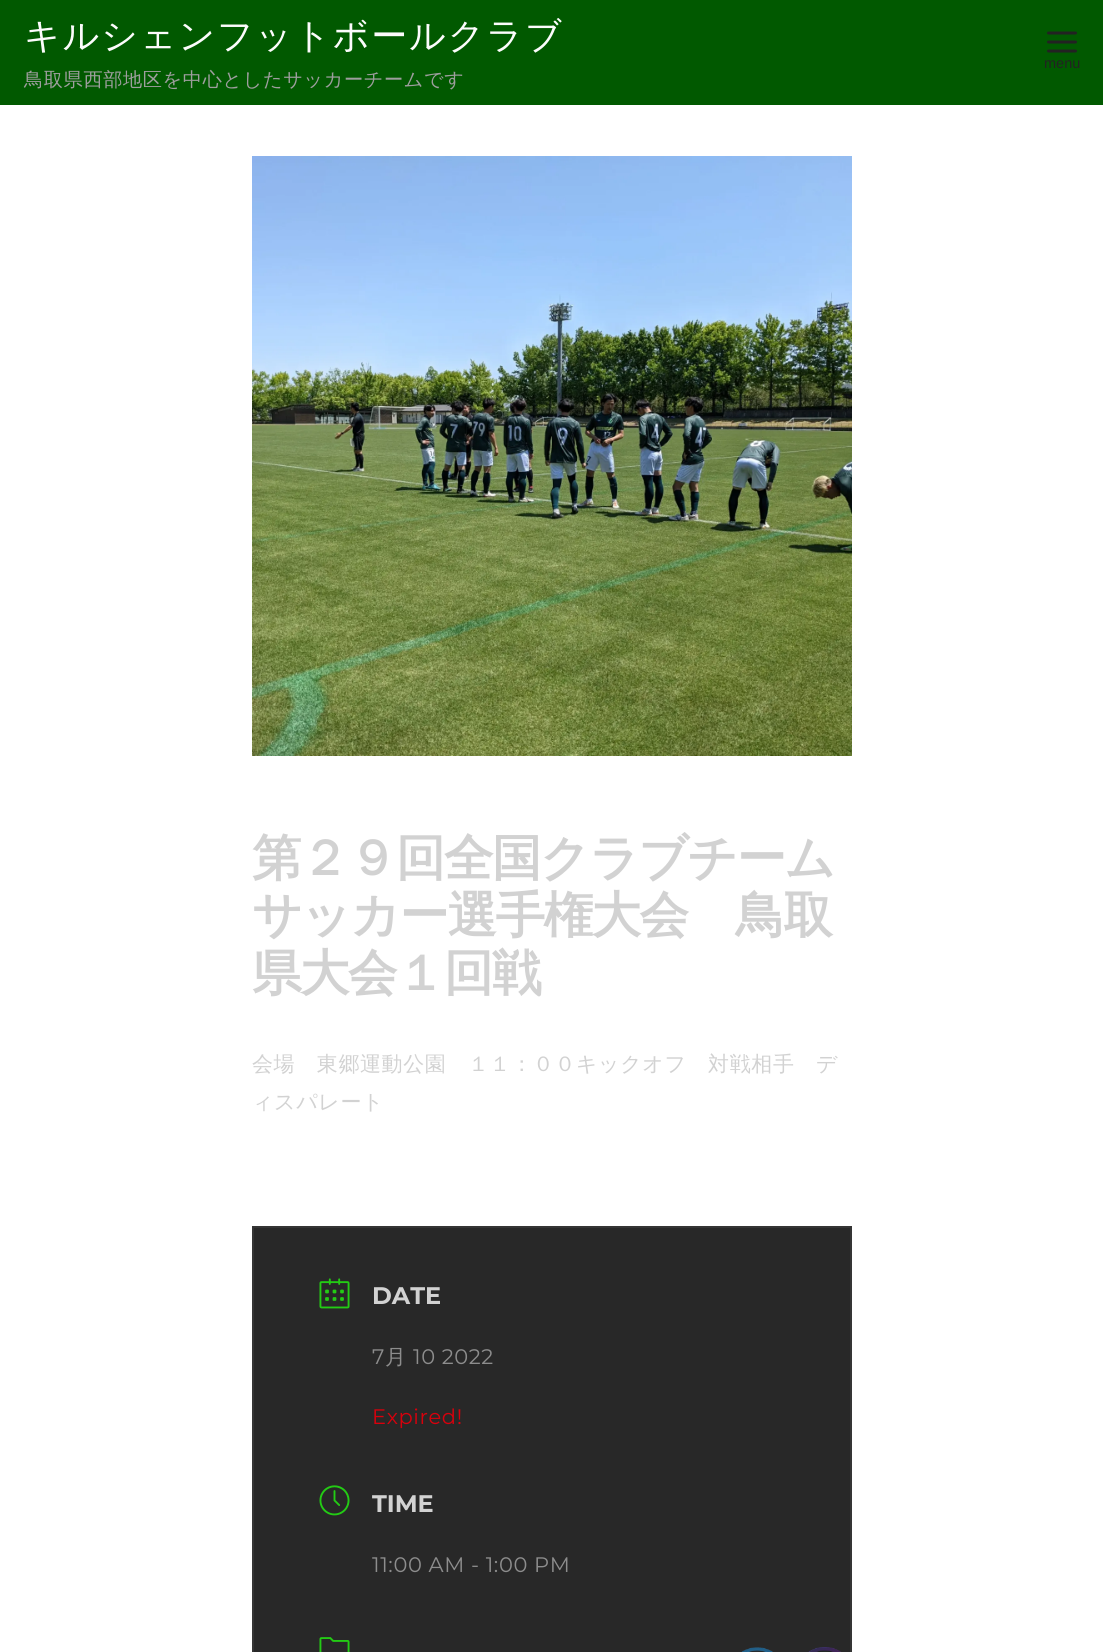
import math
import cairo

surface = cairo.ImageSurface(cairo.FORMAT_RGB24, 1103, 1652)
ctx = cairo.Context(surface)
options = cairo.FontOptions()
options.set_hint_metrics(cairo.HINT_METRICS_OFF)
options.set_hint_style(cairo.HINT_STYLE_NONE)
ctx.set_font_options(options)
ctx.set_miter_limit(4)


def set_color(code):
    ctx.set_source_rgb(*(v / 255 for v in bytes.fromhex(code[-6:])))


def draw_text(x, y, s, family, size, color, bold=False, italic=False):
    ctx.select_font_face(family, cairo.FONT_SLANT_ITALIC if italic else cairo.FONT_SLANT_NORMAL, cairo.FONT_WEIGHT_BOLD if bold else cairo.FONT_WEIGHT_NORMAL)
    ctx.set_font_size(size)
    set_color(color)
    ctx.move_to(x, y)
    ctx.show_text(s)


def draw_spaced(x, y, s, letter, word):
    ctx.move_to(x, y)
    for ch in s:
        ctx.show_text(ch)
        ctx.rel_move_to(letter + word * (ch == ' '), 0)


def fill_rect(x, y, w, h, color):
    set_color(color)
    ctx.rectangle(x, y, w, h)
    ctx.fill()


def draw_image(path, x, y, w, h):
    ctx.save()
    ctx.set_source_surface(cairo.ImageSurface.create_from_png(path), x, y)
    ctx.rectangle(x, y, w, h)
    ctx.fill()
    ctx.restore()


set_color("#ffffff")
ctx.paint()
fill_rect(0, 0, 1103, 105, "#015900")
ctx.select_font_face("WenQuanYi Zen Hei Medium")
ctx.set_font_size(36)
set_color("#fcfcfc")
draw_spaced(24, 48, "キルシェンフットボールクラブ", 1.75, 0)
ctx.set_font_size(19.2)
set_color("#9e9e9e")
draw_spaced(24, 86, "鳥取県西部地区を中心としたサッカーチームです", 0.6, 0)
ctx.new_path()
ctx.move_to(1048.5, 42)
ctx.line_to(1075.5, 42)
ctx.move_to(1048.5, 33)
ctx.line_to(1075.5, 33)
ctx.move_to(1048.5, 51)
ctx.line_to(1075.5, 51)
set_color("#222222")
ctx.set_line_width(3)
ctx.set_line_cap(cairo.LINE_CAP_ROUND)
ctx.set_line_join(cairo.LINE_JOIN_ROUND)
ctx.stroke()
draw_text(1044, 68, "menu", "Liberation Sans", 14.5, "#222222")
draw_image("assets/img1.png", 252, 156, 600, 600)
ctx.select_font_face("WenQuanYi Zen Hei", cairo.FONT_SLANT_NORMAL, cairo.FONT_WEIGHT_BOLD)
ctx.set_font_size(49.5)
set_color("#d2d2d2")
draw_spaced(252, 875, "第２９回全国クラブチーム", -1.5, 0)
draw_spaced(252, 932, "サッカー選手権大会　鳥取", -1.5, 0)
draw_spaced(252, 990, "県大会１回戦", -1.5, 0)
ctx.select_font_face("WenQuanYi Zen Hei Medium")
ctx.set_font_size(21)
draw_spaced(252, 1071, "会場　東郷運動公園　１１：００キックオフ　対戦相手　デ", 0.6, 0)
draw_spaced(252, 1109, "ィスパレート", 0.6, 0)
set_color("#282828")
ctx.rectangle(253, 1227, 598, 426)
ctx.fill_preserve()
set_color("#353535")
ctx.set_line_width(2)
ctx.set_line_cap(cairo.LINE_CAP_BUTT)
ctx.set_line_join(cairo.LINE_JOIN_MITER)
ctx.stroke()
draw_image("assets/img2.png", 319, 1278, 31, 31)
draw_text(372, 1304, "DATE", "Montserrat", 24, "#d2d2d2", bold=True)
ctx.select_font_face("Montserrat")
ctx.set_font_size(21)
set_color("#8d8d8d")
draw_spaced(372, 1364, "7", 0.6, 0)
ctx.select_font_face("WenQuanYi Zen Hei Medium")
draw_spaced(385, 1364, "月", 0.6, 0)
ctx.select_font_face("Montserrat")
draw_spaced(413, 1364, "10 2022", 0.6, 0)
set_color("#d8000c")
draw_spaced(372, 1424, "Expired!", 0.6, 0)
draw_image("assets/img3.png", 319, 1485, 31, 31)
draw_text(372, 1512, "TIME", "Montserrat", 24, "#d2d2d2", bold=True)
ctx.select_font_face("Montserrat")
ctx.set_font_size(21)
set_color("#8d8d8d")
draw_spaced(372, 1572, "11:00 AM - 1:00 PM", 0.6, 0)
draw_image("assets/img4.png", 319, 1637, 31, 15)
draw_image("assets/img5.png", 741, 1647, 32, 5)
draw_image("assets/img6.png", 808, 1647, 33, 5)
surface.write_to_png("output.png")
